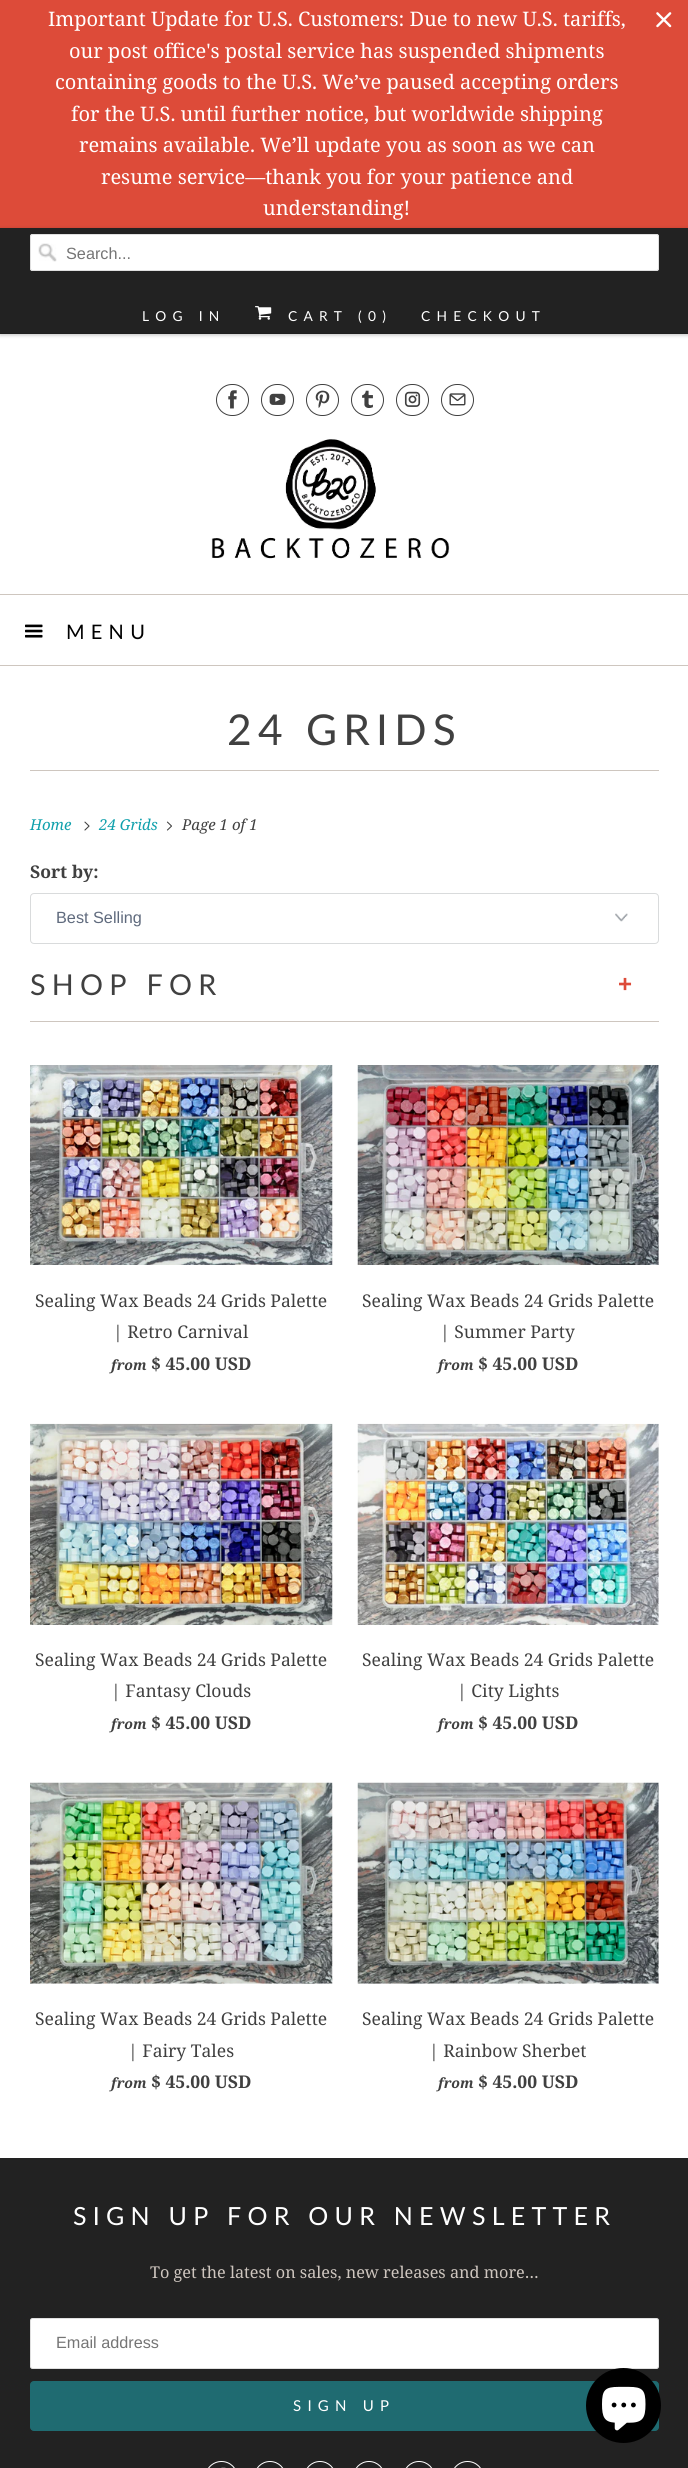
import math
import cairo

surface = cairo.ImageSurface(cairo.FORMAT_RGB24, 688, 2468)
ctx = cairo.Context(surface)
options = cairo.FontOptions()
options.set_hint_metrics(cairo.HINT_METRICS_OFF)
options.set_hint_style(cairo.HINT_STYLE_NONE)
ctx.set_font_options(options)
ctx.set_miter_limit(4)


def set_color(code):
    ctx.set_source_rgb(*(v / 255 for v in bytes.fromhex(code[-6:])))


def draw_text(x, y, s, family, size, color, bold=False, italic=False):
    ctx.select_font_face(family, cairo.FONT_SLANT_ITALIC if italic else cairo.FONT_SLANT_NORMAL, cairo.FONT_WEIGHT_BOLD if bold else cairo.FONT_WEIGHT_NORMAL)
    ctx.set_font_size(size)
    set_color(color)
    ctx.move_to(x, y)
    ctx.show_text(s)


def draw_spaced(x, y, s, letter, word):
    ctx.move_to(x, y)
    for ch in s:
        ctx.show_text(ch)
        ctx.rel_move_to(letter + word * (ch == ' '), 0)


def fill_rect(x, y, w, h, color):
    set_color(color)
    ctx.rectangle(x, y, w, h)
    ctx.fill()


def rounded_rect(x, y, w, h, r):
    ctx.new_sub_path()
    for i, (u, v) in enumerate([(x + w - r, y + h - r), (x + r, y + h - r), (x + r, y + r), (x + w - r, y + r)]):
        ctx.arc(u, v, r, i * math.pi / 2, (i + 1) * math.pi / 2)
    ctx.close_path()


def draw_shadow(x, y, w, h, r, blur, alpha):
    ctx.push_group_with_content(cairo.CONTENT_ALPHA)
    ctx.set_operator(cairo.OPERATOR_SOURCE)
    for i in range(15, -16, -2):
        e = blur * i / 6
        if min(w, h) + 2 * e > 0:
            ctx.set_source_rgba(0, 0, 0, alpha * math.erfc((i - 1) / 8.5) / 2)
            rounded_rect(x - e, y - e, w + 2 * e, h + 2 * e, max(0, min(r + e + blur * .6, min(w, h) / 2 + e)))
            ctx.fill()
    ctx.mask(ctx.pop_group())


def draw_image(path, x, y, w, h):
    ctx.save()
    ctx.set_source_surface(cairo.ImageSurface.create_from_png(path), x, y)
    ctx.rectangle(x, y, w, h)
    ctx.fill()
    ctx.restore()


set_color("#ffffff")
ctx.paint()
fill_rect(0, 0, 688, 228, "#dd4b39")
draw_text(48, 26, "Important Update for U.S. Customers: Due to new U.S. tariffs,", "Noto Serif", 20, "#ffffff")
draw_text(69, 58, "our post office's postal service has suspended shipments", "Noto Serif", 20, "#ffffff")
draw_text(55, 89, "containing goods to the U.S. We’ve paused accepting orders", "Noto Serif", 20, "#ffffff")
draw_text(71, 121, "for the U.S. until further notice, but worldwide shipping", "Noto Serif", 20, "#ffffff")
draw_text(79, 152, "remains available. We’ll update you as soon as we can", "Noto Serif", 20, "#ffffff")
draw_text(101, 184, "resume service—thank you for your patience and", "Noto Serif", 20, "#ffffff")
draw_text(263, 215, "understanding!", "Noto Serif", 20, "#ffffff")
draw_image("assets/img1.png", 656, 12, 16, 16)
set_color("#000000")
draw_shadow(0, 229, 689, 106, 0, 2, 0.25)
fill_rect(0, 228, 688, 105, "#222222")
fill_rect(0, 333, 688, 1, "#1f1f1f")
set_color("#ffffff")
rounded_rect(30, 234, 629, 37, 2.5)
ctx.fill()
draw_image("assets/img2.png", 38, 243, 19, 19)
rounded_rect(30.5, 234.5, 628, 36, 2)
set_color("#dfdfdf")
ctx.set_line_width(1)
ctx.stroke()
draw_text(66, 259, "Search...", "Liberation Sans", 16.25, "#757575")
ctx.select_font_face("Lato")
ctx.set_font_size(13.75)
set_color("#ffffff")
draw_spaced(142, 321, "LOG IN", 6.25, 0)
draw_image("assets/img3.png", 255, 306, 17, 14)
draw_spaced(288, 321, "CART (0)", 6.25, 0)
draw_spaced(421, 321, "CHECKOUT", 6.25, 0)
rounded_rect(216.5, 384.5, 32, 31, 15.5)
set_color("#404040")
ctx.stroke()
draw_image("assets/img4.png", 228, 390, 9, 19)
rounded_rect(261.5, 384.5, 32, 31, 15.5)
ctx.stroke()
draw_image("assets/img5.png", 269, 393, 17, 12)
rounded_rect(306.5, 384.5, 32, 31, 15.5)
ctx.stroke()
draw_image("assets/img6.png", 315, 390, 15, 18)
rounded_rect(351.5, 384.5, 32, 31, 15.5)
ctx.stroke()
draw_image("assets/img7.png", 362, 390, 11, 18)
rounded_rect(396.5, 384.5, 32, 31, 15.5)
ctx.stroke()
draw_image("assets/img8.png", 404, 391, 17, 16)
rounded_rect(441.5, 384.5, 32, 31, 15.5)
ctx.stroke()
draw_image("assets/img9.png", 449, 393, 17, 13)
draw_image("assets/img10.png", 211, 439, 239, 120)
fill_rect(0, 594, 688, 1, "#cec6bf")
fill_rect(0, 665, 688, 1, "#cec6bf")
draw_image("assets/img11.png", 25, 624, 18, 14)
ctx.set_font_size(20)
set_color("#000000")
draw_spaced(66, 639, "MENU", 6.25, 0)
fill_rect(30, 770, 629, 1, "#cec6bf")
ctx.set_font_size(42.5)
set_color("#404040")
draw_spaced(227, 745, "24 GRIDS", 6.25, 0)
draw_text(30, 830, "Home", "Noto Serif", 15, "#0fa0ac", italic=True)
draw_image("assets/img12.png", 84, 821, 6, 10)
draw_text(99, 830, "24 Grids", "Noto Serif", 15, "#0fa0ac", italic=True)
draw_image("assets/img13.png", 166, 821, 6, 10)
draw_text(182, 830, "Page 1 of 1", "Noto Serif", 15, "#404040", italic=True)
draw_text(30, 878, "Sort by:", "Noto Serif", 17.5, "#404040", bold=True)
draw_image("assets/img14.png", 615, 913, 13, 9)
rounded_rect(30.5, 893.5, 628, 50, 3.5)
set_color("#d9dbdc")
ctx.stroke()
draw_text(56, 923, "Best Selling", "Liberation Sans", 16.25, "#5f6a7d")
fill_rect(30, 1021, 629, 1, "#cec6bf")
ctx.select_font_face("Lato")
ctx.set_font_size(28.75)
set_color("#404040")
draw_spaced(30, 995, "SHOP FOR", 6.25, 0)
ctx.select_font_face("Liberation Sans", cairo.FONT_SLANT_NORMAL, cairo.FONT_WEIGHT_BOLD)
ctx.set_font_size(24)
set_color("#dd4b39")
draw_spaced(618, 992, "+", 6.25, 0)
draw_image("assets/img15.png", 30, 1065, 303, 200)
draw_text(35, 1307, "Sealing Wax Beads 24 Grids Palette", "Noto Serif", 17.5, "#404040")
draw_text(113, 1338, "| Retro Carnival", "Noto Serif", 17.5, "#404040")
draw_text(111, 1370, "from", "Noto Serif", 14, "#404040", bold=True, italic=True)
draw_text(151, 1370, "$ 45.00 USD", "Noto Serif", 17.5, "#404040", bold=True)
draw_image("assets/img16.png", 357, 1065, 302, 200)
draw_text(362, 1307, "Sealing Wax Beads 24 Grids Palette", "Noto Serif", 17.5, "#404040")
draw_text(440, 1338, "| Summer Party", "Noto Serif", 17.5, "#404040")
draw_text(438, 1370, "from", "Noto Serif", 14, "#404040", bold=True, italic=True)
draw_text(478, 1370, "$ 45.00 USD", "Noto Serif", 17.5, "#404040", bold=True)
draw_image("assets/img17.png", 30, 1423, 303, 202)
draw_text(35, 1666, "Sealing Wax Beads 24 Grids Palette", "Noto Serif", 17.5, "#404040")
draw_text(111, 1697, "| Fantasy Clouds", "Noto Serif", 17.5, "#404040")
draw_text(111, 1729, "from", "Noto Serif", 14, "#404040", bold=True, italic=True)
draw_text(151, 1729, "$ 45.00 USD", "Noto Serif", 17.5, "#404040", bold=True)
draw_image("assets/img18.png", 357, 1423, 302, 202)
draw_text(362, 1666, "Sealing Wax Beads 24 Grids Palette", "Noto Serif", 17.5, "#404040")
draw_text(457, 1697, "| City Lights", "Noto Serif", 17.5, "#404040")
draw_text(438, 1729, "from", "Noto Serif", 14, "#404040", bold=True, italic=True)
draw_text(478, 1729, "$ 45.00 USD", "Noto Serif", 17.5, "#404040", bold=True)
draw_image("assets/img19.png", 30, 1782, 303, 202)
draw_text(35, 2025, "Sealing Wax Beads 24 Grids Palette", "Noto Serif", 17.5, "#404040")
draw_text(128, 2057, "| Fairy Tales", "Noto Serif", 17.5, "#404040")
draw_text(111, 2088, "from", "Noto Serif", 14, "#404040", bold=True, italic=True)
draw_text(151, 2088, "$ 45.00 USD", "Noto Serif", 17.5, "#404040", bold=True)
draw_image("assets/img20.png", 357, 1782, 302, 202)
draw_text(362, 2025, "Sealing Wax Beads 24 Grids Palette", "Noto Serif", 17.5, "#404040")
draw_text(429, 2057, "| Rainbow Sherbet", "Noto Serif", 17.5, "#404040")
draw_text(438, 2088, "from", "Noto Serif", 14, "#404040", bold=True, italic=True)
draw_text(478, 2088, "$ 45.00 USD", "Noto Serif", 17.5, "#404040", bold=True)
fill_rect(0, 2158, 688, 310, "#222222")
ctx.select_font_face("Lato")
ctx.set_font_size(25)
set_color("#ffffff")
draw_spaced(73, 2225, "SIGN UP FOR OUR NEWSLETTER", 6.25, 0)
draw_text(150, 2278, "To get the latest on sales, new releases and more…", "Noto Serif", 16.25, "#cec6bf")
set_color("#ffffff")
rounded_rect(30.5, 2318.5, 628, 50, 2)
ctx.fill_preserve()
set_color("#dfdfdf")
ctx.stroke()
draw_text(56, 2348, "Email address", "Liberation Sans", 16.25, "#757575")
set_color("#1f6b71")
rounded_rect(30.5, 2381.5, 628, 49, 3.5)
ctx.fill_preserve()
ctx.stroke()
ctx.select_font_face("Lato")
ctx.set_font_size(15)
set_color("#ffffff")
draw_spaced(293, 2411, "SIGN UP", 6.25, 0)
rounded_rect(205.5, 2461.5, 32, 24, 16)
ctx.stroke()
draw_image("assets/img21.png", 221, 2467, 5, 1)
rounded_rect(254.5, 2461.5, 31, 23, 15.5)
ctx.stroke()
rounded_rect(304.5, 2461.5, 31, 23, 15.5)
ctx.stroke()
rounded_rect(353.5, 2461.5, 31, 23, 15.5)
ctx.stroke()
rounded_rect(403.5, 2461.5, 31, 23, 15.5)
ctx.stroke()
rounded_rect(451.5, 2461.5, 32, 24, 16)
ctx.stroke()
set_color("#000000")
ctx.arc(623.5, 2405.5, 37.5, 0, 2 * math.pi)
ctx.fill()
draw_image("assets/img22.png", 602, 2386, 44, 45)
surface.write_to_png("output.png")
